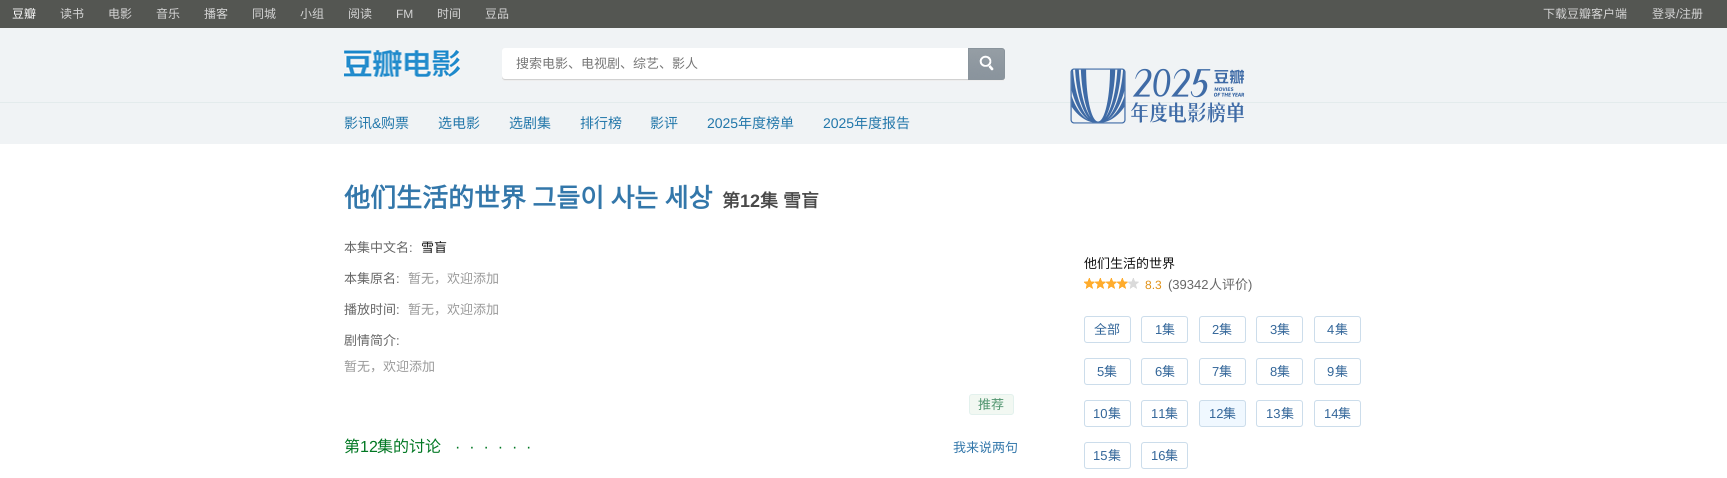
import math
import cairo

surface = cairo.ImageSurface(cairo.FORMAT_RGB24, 1727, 478)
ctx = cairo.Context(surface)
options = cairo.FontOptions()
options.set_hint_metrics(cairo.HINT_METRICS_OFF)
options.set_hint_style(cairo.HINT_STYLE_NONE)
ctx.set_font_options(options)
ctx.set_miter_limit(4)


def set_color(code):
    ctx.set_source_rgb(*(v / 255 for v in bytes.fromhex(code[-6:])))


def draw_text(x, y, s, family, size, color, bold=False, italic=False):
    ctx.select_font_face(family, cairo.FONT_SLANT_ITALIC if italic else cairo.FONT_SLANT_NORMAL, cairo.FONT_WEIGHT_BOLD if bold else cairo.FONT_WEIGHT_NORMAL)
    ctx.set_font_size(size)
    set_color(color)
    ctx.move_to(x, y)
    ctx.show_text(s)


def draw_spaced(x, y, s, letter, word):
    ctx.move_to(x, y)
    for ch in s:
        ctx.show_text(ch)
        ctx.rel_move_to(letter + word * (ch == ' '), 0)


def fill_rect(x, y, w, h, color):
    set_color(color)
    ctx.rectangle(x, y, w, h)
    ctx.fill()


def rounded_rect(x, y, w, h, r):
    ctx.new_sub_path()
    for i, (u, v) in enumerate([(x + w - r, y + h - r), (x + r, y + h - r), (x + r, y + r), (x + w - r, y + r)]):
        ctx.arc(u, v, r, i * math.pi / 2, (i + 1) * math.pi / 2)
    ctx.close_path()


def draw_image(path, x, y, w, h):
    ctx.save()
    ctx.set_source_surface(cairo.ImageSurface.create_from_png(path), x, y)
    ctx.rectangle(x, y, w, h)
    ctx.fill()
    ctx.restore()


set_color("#ffffff")
ctx.paint()
fill_rect(0, 0, 1727, 28, "#545652")
draw_text(12, 18, "豆瓣", "Noto Sans CJK SC", 12, "#ffffff")
draw_text(60, 18, "读书", "Noto Sans CJK SC", 12, "#d5d5d5")
draw_text(108, 18, "电影", "Noto Sans CJK SC", 12, "#d5d5d5")
draw_text(156, 18, "音乐", "Noto Sans CJK SC", 12, "#d5d5d5")
draw_text(204, 18, "播客", "Noto Sans CJK SC", 12, "#d5d5d5")
draw_text(252, 18, "同城", "Noto Sans CJK SC", 12, "#d5d5d5")
draw_text(300, 18, "小组", "Noto Sans CJK SC", 12, "#d5d5d5")
draw_text(348, 18, "阅读", "Noto Sans CJK SC", 12, "#d5d5d5")
draw_text(396, 18, "FM", "Liberation Sans", 12, "#d5d5d5")
draw_text(437, 18, "时间", "Noto Sans CJK SC", 12, "#d5d5d5")
draw_text(485, 18, "豆品", "Noto Sans CJK SC", 12, "#d5d5d5")
draw_text(1543, 18, "下载豆瓣客户端", "Noto Sans CJK SC", 12, "#d5d5d5")
draw_text(1652, 18, "登录", "Noto Sans CJK SC", 12, "#d5d5d5")
draw_text(1676, 18, "/", "Liberation Sans", 12, "#d5d5d5")
draw_text(1679, 18, "注册", "Noto Sans CJK SC", 12, "#d5d5d5")
fill_rect(0, 28, 1727, 116, "#f0f3f5")
fill_rect(0, 102, 1727, 1, "#e3ebec")
draw_image("assets/img1.png", 344, 50, 116, 27)
draw_image("assets/img2.png", 502, 48, 466, 33)
draw_text(516, 68, "搜索电影、电视剧、综艺、影人", "Noto Sans CJK SC", 13, "#757575")
draw_image("assets/img3.png", 968, 48, 37, 33)
draw_text(344, 128, "影讯", "Noto Sans CJK SC", 14, "#2277aa")
draw_text(372, 128, "&", "Liberation Sans", 14, "#2277aa")
draw_text(381, 128, "购票", "Noto Sans CJK SC", 14, "#2277aa")
draw_text(438, 128, "选电影", "Noto Sans CJK SC", 14, "#2277aa")
draw_text(509, 128, "选剧集", "Noto Sans CJK SC", 14, "#2277aa")
draw_text(580, 128, "排行榜", "Noto Sans CJK SC", 14, "#2277aa")
draw_text(650, 128, "影评", "Noto Sans CJK SC", 14, "#2277aa")
draw_text(707, 128, "2025", "Liberation Sans", 14, "#2277aa")
draw_text(738, 128, "年度榜单", "Noto Sans CJK SC", 14, "#2277aa")
draw_text(823, 128, "2025", "Liberation Sans", 14, "#2277aa")
draw_text(854, 128, "年度报告", "Noto Sans CJK SC", 14, "#2277aa")
draw_image("assets/img4.png", 1070, 68, 175, 56)
ctx.select_font_face("Noto Sans CJK SC", cairo.FONT_SLANT_NORMAL, cairo.FONT_WEIGHT_BOLD)
ctx.set_font_size(26)
set_color("#3377aa")
draw_spaced(344, 207, "他们生活的世界 그들이 사는 세상", 0, 0.5)
draw_text(722, 207, "第", "Noto Sans CJK SC", 18, "#494949", bold=True)
draw_text(740, 207, "12", "Liberation Sans", 18, "#494949", bold=True)
draw_text(760, 207, "集", "Noto Sans CJK SC", 18, "#494949", bold=True)
draw_text(783, 207, "雪盲", "Noto Sans CJK SC", 18, "#494949", bold=True)
draw_text(344, 252, "本集中文名", "Noto Sans CJK SC", 13, "#666666")
draw_text(409, 252, ":", "Liberation Sans", 13, "#666666")
draw_text(421, 252, "雪盲", "Noto Sans CJK SC", 13, "#111111")
draw_text(344, 283, "本集原名", "Noto Sans CJK SC", 13, "#666666")
draw_text(396, 283, ":", "Liberation Sans", 13, "#666666")
draw_text(408, 283, "暂无，欢迎添加", "Noto Sans CJK SC", 13, "#999999")
draw_text(344, 314, "播放时间", "Noto Sans CJK SC", 13, "#666666")
draw_text(396, 314, ":", "Liberation Sans", 13, "#666666")
draw_text(408, 314, "暂无，欢迎添加", "Noto Sans CJK SC", 13, "#999999")
draw_text(344, 345, "剧情简介", "Noto Sans CJK SC", 13, "#666666")
draw_text(396, 345, ":", "Liberation Sans", 13, "#666666")
draw_text(344, 371, "暂无，欢迎添加", "Noto Sans CJK SC", 13, "#999999")
set_color("#f2f8f2")
rounded_rect(969.5, 394.5, 44, 20, 2.5)
ctx.fill_preserve()
set_color("#e3f1ed")
ctx.set_line_width(1)
ctx.stroke()
draw_text(978, 409, "推荐", "Noto Sans CJK SC", 13, "#4f946e")
draw_text(344, 452, "第", "Noto Sans CJK SC", 16, "#007722")
draw_text(360, 452, "12", "Liberation Sans", 16, "#007722")
draw_text(377, 452, "集的讨论", "Noto Sans CJK SC", 16, "#007722")
draw_text(455, 452, "·  ·  ·  ·  ·  ·", "Liberation Sans", 16, "#007722")
draw_text(953, 452, "我来说两句", "Noto Sans CJK SC", 13, "#3377aa")
draw_text(1084, 268, "他们生活的世界", "Noto Sans CJK SC", 13, "#111111")
draw_image("assets/img5.png", 1084, 278, 55, 11)
draw_text(1145, 289, "8.3", "Liberation Sans", 12, "#e09015")
draw_text(1168, 289, "(39342", "Liberation Sans", 13, "#666666")
draw_text(1209, 289, "人评价", "Noto Sans CJK SC", 13, "#666666")
draw_text(1248, 289, ")", "Liberation Sans", 13, "#666666")
rounded_rect(1084.5, 316.5, 46, 26, 2.5)
set_color("#ccddeb")
ctx.stroke()
draw_text(1094, 334, "全部", "Noto Sans CJK SC", 13, "#336699")
rounded_rect(1141.5, 316.5, 46, 26, 2.5)
set_color("#ccddeb")
ctx.stroke()
draw_text(1155, 334, "1", "Liberation Sans", 13, "#336699")
draw_text(1162, 334, "集", "Noto Sans CJK SC", 13, "#336699")
rounded_rect(1199.5, 316.5, 46, 26, 2.5)
set_color("#ccddeb")
ctx.stroke()
draw_text(1212, 334, "2", "Liberation Sans", 13, "#336699")
draw_text(1219, 334, "集", "Noto Sans CJK SC", 13, "#336699")
rounded_rect(1256.5, 316.5, 46, 26, 2.5)
set_color("#ccddeb")
ctx.stroke()
draw_text(1270, 334, "3", "Liberation Sans", 13, "#336699")
draw_text(1277, 334, "集", "Noto Sans CJK SC", 13, "#336699")
rounded_rect(1314.5, 316.5, 46, 26, 2.5)
set_color("#ccddeb")
ctx.stroke()
draw_text(1327, 334, "4", "Liberation Sans", 13, "#336699")
draw_text(1335, 334, "集", "Noto Sans CJK SC", 13, "#336699")
rounded_rect(1084.5, 358.5, 46, 26, 2.5)
set_color("#ccddeb")
ctx.stroke()
draw_text(1097, 376, "5", "Liberation Sans", 13, "#336699")
draw_text(1104, 376, "集", "Noto Sans CJK SC", 13, "#336699")
rounded_rect(1141.5, 358.5, 46, 26, 2.5)
set_color("#ccddeb")
ctx.stroke()
draw_text(1155, 376, "6", "Liberation Sans", 13, "#336699")
draw_text(1162, 376, "集", "Noto Sans CJK SC", 13, "#336699")
rounded_rect(1199.5, 358.5, 46, 26, 2.5)
set_color("#ccddeb")
ctx.stroke()
draw_text(1212, 376, "7", "Liberation Sans", 13, "#336699")
draw_text(1219, 376, "集", "Noto Sans CJK SC", 13, "#336699")
rounded_rect(1256.5, 358.5, 46, 26, 2.5)
set_color("#ccddeb")
ctx.stroke()
draw_text(1270, 376, "8", "Liberation Sans", 13, "#336699")
draw_text(1277, 376, "集", "Noto Sans CJK SC", 13, "#336699")
rounded_rect(1314.5, 358.5, 46, 26, 2.5)
set_color("#ccddeb")
ctx.stroke()
draw_text(1327, 376, "9", "Liberation Sans", 13, "#336699")
draw_text(1335, 376, "集", "Noto Sans CJK SC", 13, "#336699")
rounded_rect(1084.5, 400.5, 46, 26, 2.5)
set_color("#ccddeb")
ctx.stroke()
draw_text(1093, 418, "10", "Liberation Sans", 13, "#336699")
draw_text(1108, 418, "集", "Noto Sans CJK SC", 13, "#336699")
rounded_rect(1141.5, 400.5, 46, 26, 2.5)
set_color("#ccddeb")
ctx.stroke()
draw_text(1151, 418, "11", "Liberation Sans", 13, "#336699")
draw_text(1165, 418, "集", "Noto Sans CJK SC", 13, "#336699")
set_color("#f0f8ff")
rounded_rect(1199.5, 400.5, 46, 26, 2.5)
ctx.fill_preserve()
set_color("#ccddeb")
ctx.stroke()
draw_text(1209, 418, "12", "Liberation Sans", 13, "#336699")
draw_text(1223, 418, "集", "Noto Sans CJK SC", 13, "#336699")
rounded_rect(1256.5, 400.5, 46, 26, 2.5)
set_color("#ccddeb")
ctx.stroke()
draw_text(1266, 418, "13", "Liberation Sans", 13, "#336699")
draw_text(1281, 418, "集", "Noto Sans CJK SC", 13, "#336699")
rounded_rect(1314.5, 400.5, 46, 26, 2.5)
set_color("#ccddeb")
ctx.stroke()
draw_text(1324, 418, "14", "Liberation Sans", 13, "#336699")
draw_text(1338, 418, "集", "Noto Sans CJK SC", 13, "#336699")
rounded_rect(1084.5, 442.5, 46, 26, 2.5)
set_color("#ccddeb")
ctx.stroke()
draw_text(1093, 460, "15", "Liberation Sans", 13, "#336699")
draw_text(1108, 460, "集", "Noto Sans CJK SC", 13, "#336699")
rounded_rect(1141.5, 442.5, 46, 26, 2.5)
set_color("#ccddeb")
ctx.stroke()
draw_text(1151, 460, "16", "Liberation Sans", 13, "#336699")
draw_text(1165, 460, "集", "Noto Sans CJK SC", 13, "#336699")
surface.write_to_png("output.png")
